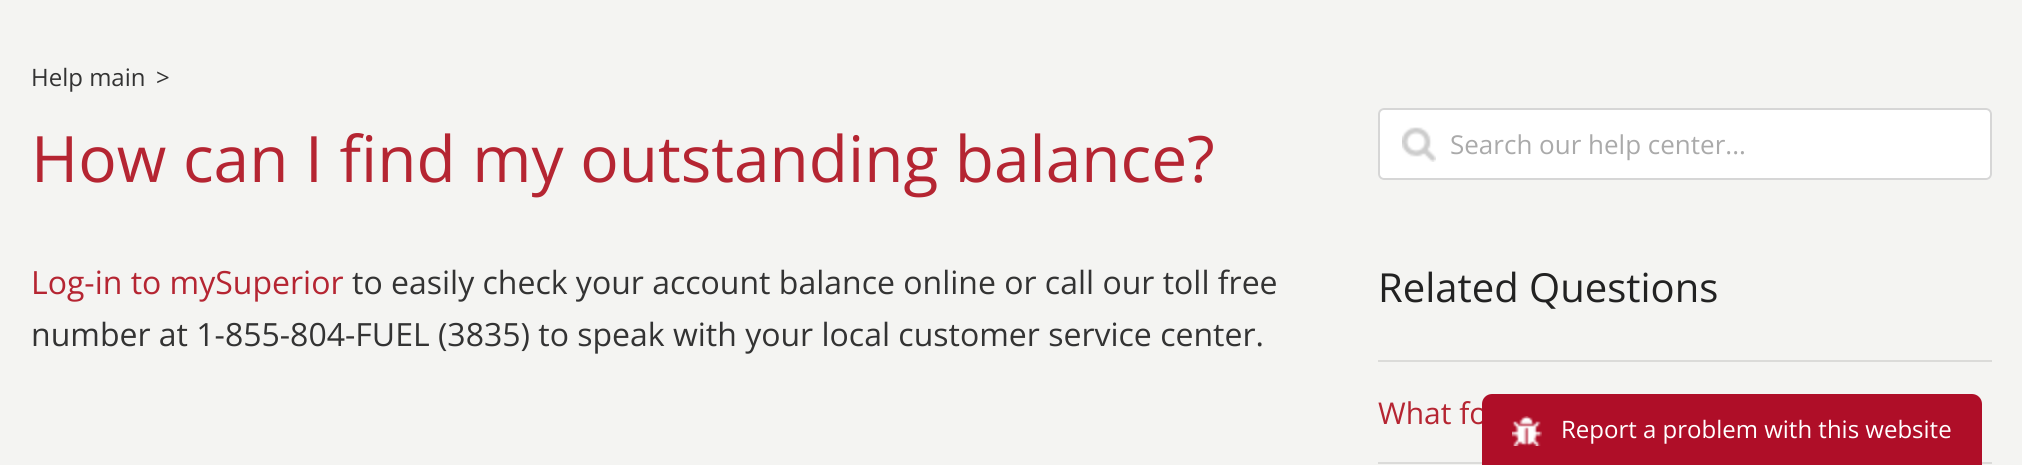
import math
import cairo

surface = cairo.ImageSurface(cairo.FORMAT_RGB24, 2022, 465)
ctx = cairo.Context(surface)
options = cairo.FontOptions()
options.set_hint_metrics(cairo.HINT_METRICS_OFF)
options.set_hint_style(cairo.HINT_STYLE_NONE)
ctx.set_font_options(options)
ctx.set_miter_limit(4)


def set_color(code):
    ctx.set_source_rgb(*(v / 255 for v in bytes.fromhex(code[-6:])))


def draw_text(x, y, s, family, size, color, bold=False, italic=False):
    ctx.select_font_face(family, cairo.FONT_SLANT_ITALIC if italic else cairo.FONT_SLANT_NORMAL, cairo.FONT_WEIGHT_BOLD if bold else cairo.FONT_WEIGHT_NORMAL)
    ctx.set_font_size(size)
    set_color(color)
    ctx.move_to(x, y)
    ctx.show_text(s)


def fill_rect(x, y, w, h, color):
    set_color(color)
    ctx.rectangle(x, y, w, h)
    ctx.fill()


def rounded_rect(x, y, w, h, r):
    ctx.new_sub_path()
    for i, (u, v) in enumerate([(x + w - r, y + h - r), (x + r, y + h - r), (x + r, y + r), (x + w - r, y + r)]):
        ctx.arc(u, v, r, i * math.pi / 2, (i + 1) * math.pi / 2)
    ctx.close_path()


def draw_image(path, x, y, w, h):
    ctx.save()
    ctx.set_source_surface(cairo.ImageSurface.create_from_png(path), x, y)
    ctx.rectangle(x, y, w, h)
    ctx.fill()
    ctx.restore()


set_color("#f4f4f2")
ctx.paint()
draw_text(31, 86, "Help main", "Open Sans", 24, "#333333")
draw_text(156, 86, ">", "Open Sans", 24, "#333333")
draw_text(31, 182, "How can I find my outstanding balance?", "Open Sans", 64, "#b52532")
set_color("#ffffff")
rounded_rect(1378, 108, 614, 72, 6)
ctx.fill()
draw_image("assets/img1.png", 1402, 127, 34, 35)
rounded_rect(1379, 109, 612, 70, 5)
set_color("#d6d6d6")
ctx.stroke()
draw_text(1450, 154, "Search our help center...", "Open Sans", 26, "#aaaaaa")
draw_text(31, 294, "Log-in to mySuperior", "Open Sans", 32, "#b52532")
draw_text(352, 294, "to easily check your account balance online or call our toll free", "Open Sans", 32, "#333333")
draw_text(31, 346, "number at 1-855-804-FUEL (3835) to speak with your local customer service center.", "Open Sans", 32, "#333333")
draw_text(1378, 302, "Related Questions", "Open Sans", 40, "#222222")
fill_rect(1378, 360, 614, 2, "#dbdbd9")
draw_text(1378, 424, "What fo", "Open Sans", 30, "#b52532")
fill_rect(1378, 462, 614, 2, "#dbdbd9")
set_color("#af0e28")
ctx.new_path()
ctx.move_to(1492, 394)
ctx.line_to(1972, 394)
ctx.curve_to(1977.5, 394, 1982, 398.5, 1982, 404)
ctx.line_to(1982, 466)
ctx.line_to(1482, 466)
ctx.line_to(1482, 404)
ctx.curve_to(1482, 398.5, 1486.5, 394, 1492, 394)
ctx.close_path()
ctx.fill()
draw_image("assets/img2.png", 1512, 416, 30, 30)
draw_text(1561, 438, "Report a problem with this website", "Open Sans", 24, "#ffffff")
surface.write_to_png("output.png")
